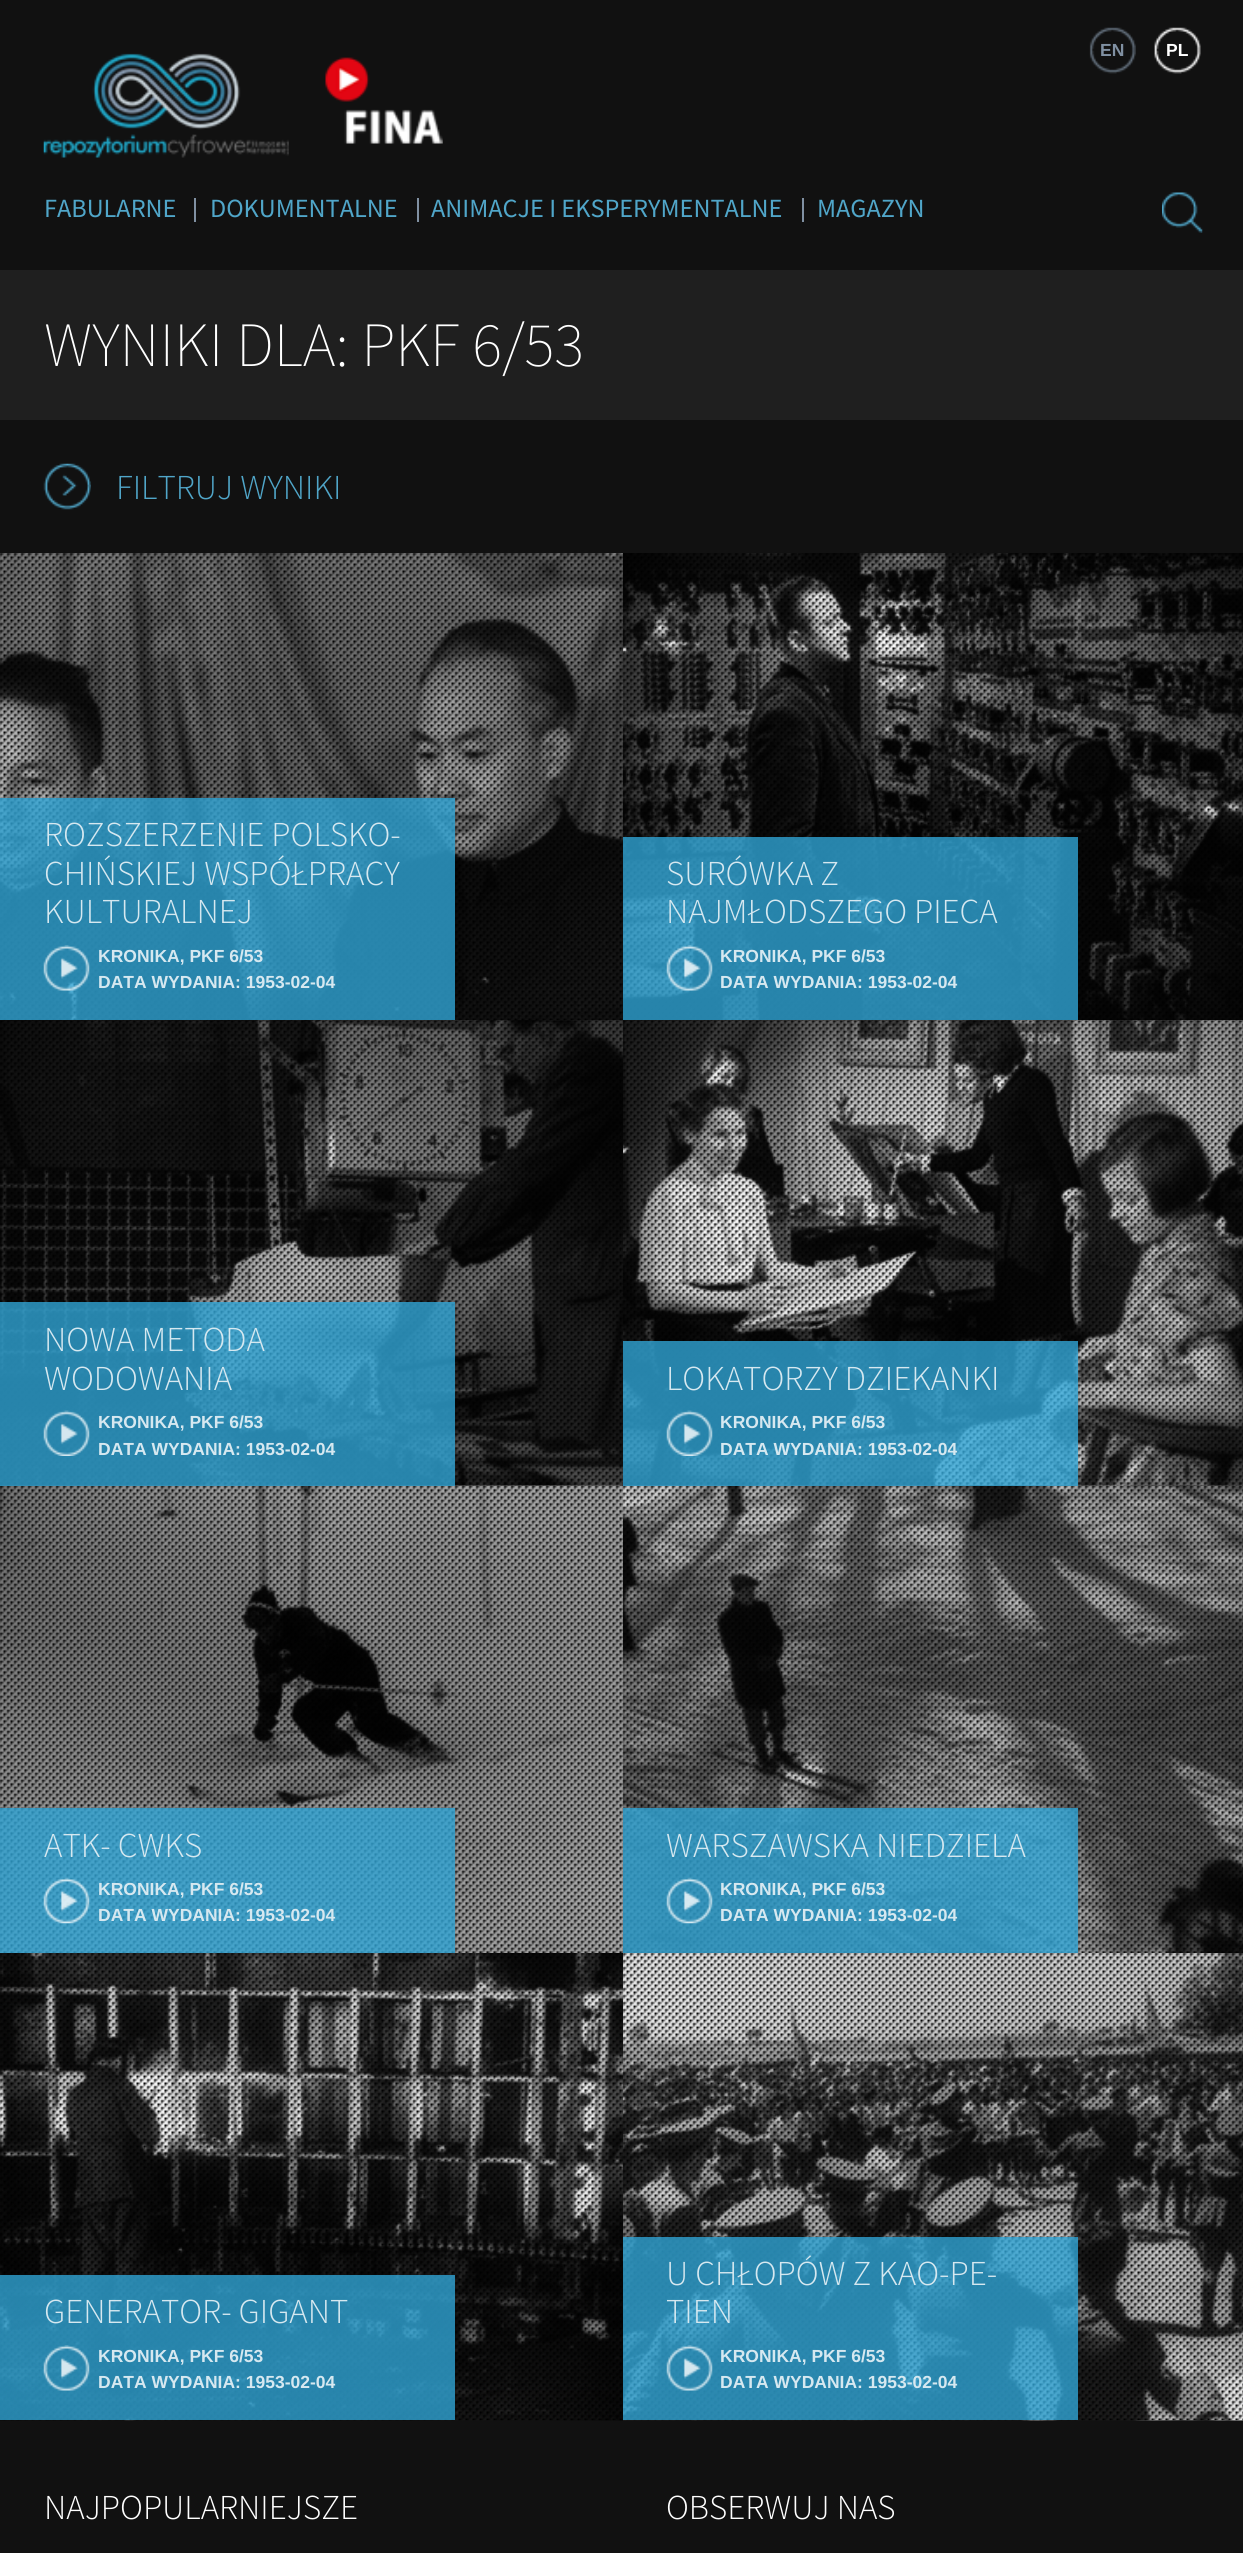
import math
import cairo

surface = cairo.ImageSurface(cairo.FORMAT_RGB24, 1243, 2553)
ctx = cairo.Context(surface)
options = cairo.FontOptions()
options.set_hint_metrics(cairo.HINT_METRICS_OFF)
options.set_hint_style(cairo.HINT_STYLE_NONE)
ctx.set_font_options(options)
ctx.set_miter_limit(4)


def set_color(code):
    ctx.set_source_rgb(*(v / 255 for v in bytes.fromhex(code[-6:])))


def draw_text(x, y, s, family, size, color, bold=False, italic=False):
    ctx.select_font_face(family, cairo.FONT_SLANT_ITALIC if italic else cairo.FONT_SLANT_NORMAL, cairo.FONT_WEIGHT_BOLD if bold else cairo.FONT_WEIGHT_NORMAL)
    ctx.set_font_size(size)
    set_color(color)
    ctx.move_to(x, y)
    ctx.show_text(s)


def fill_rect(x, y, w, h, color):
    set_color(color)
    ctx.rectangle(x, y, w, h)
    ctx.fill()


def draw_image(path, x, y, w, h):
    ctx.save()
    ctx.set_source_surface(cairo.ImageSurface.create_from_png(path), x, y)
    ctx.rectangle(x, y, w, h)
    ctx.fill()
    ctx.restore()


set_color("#111111")
ctx.paint()
draw_image("assets/img1.png", 1089, 27, 47, 47)
draw_image("assets/img2.png", 1154, 27, 47, 47)
draw_text(1100, 56, "EN", "Liberation Sans", 17.5, "#8090a2", bold=True)
draw_text(1166, 56, "PL", "Liberation Sans", 17.5, "#ffffff", bold=True)
draw_image("assets/img3.png", 43, 53, 246, 105)
draw_image("assets/img4.png", 325, 57, 118, 87)
draw_text(44, 217, "FABULARNE", "Source Sans Pro", 26.25, "#50a6c9")
draw_text(210, 217, "DOKUMENTALNE", "Source Sans Pro", 26.25, "#50a6c9")
fill_rect(194, 198, 2, 24, "#8090a2")
draw_text(431, 217, "ANIMACJE I EKSPERYMENTALNE", "Source Sans Pro", 26.25, "#50a6c9")
fill_rect(417, 198, 2, 24, "#8090a2")
draw_text(817, 217, "MAGAZYN", "Source Sans Pro", 26.25, "#50a6c9")
fill_rect(802, 198, 2, 24, "#8090a2")
draw_image("assets/img5.png", 1162, 192, 41, 41)
fill_rect(0, 270, 1243, 150, "#1f1f1f")
draw_text(44, 366, "WYNIKI DLA: PKF 6/53", "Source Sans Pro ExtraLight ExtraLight", 63, "#ffffff")
draw_image("assets/img6.png", 43, 463, 48, 47)
draw_text(116, 499, "FILTRUJ WYNIKI", "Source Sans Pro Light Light", 35, "#50a6c9")
draw_image("assets/img9.png", 0, 1020, 623, 1)
draw_image("assets/img7.png", 0, 553, 623, 468)
draw_image("assets/img15.png", 0, 1020, 623, 466)
draw_image("assets/img16.png", 0, 1020, 623, 466)
draw_image("assets/img8.png", 0, 553, 623, 468)
ctx.set_source_rgba(0.188, 0.643, 0.831, 0.8)
ctx.rectangle(0, 798, 455, 222)
ctx.fill()
draw_text(44, 846, "ROZSZERZENIE POLSKO-", "Source Sans Pro Light Light", 35, "#d6e8f0")
draw_text(44, 885, "CHIŃSKIEJ WSPÓŁPRACY", "Source Sans Pro Light Light", 35, "#d6e8f0")
draw_text(44, 923, "KULTURALNEJ", "Source Sans Pro Light Light", 35, "#d6e8f0")
draw_image("assets/img10.png", 43, 945, 47, 46)
draw_text(98, 962, "KRONIKA, PKF 6/53", "Liberation Sans", 17.5, "#d6e8f0", bold=True)
draw_text(98, 988, "DATA WYDANIA: 1953-02-04", "Liberation Sans", 17.5, "#d6e8f0", bold=True)
draw_image("assets/img13.png", 623, 1020, 620, 1)
draw_image("assets/img11.png", 623, 553, 620, 468)
draw_image("assets/img19.png", 623, 1020, 620, 466)
draw_image("assets/img20.png", 623, 1020, 620, 466)
draw_image("assets/img12.png", 623, 553, 620, 468)
ctx.set_source_rgba(0.188, 0.643, 0.831, 0.8)
ctx.rectangle(623, 837, 455, 183)
ctx.fill()
draw_text(666, 885, "SURÓWKA Z", "Source Sans Pro Light Light", 35, "#d6e8f0")
draw_text(666, 923, "NAJMŁODSZEGO PIECA", "Source Sans Pro Light Light", 35, "#d6e8f0")
draw_image("assets/img14.png", 666, 945, 47, 46)
draw_text(720, 962, "KRONIKA, PKF 6/53", "Liberation Sans", 17.5, "#d6e8f0", bold=True)
draw_text(720, 988, "DATA WYDANIA: 1953-02-04", "Liberation Sans", 17.5, "#d6e8f0", bold=True)
draw_image("assets/img23.png", 0, 1485, 623, 1)
draw_image("assets/img24.png", 0, 1485, 623, 468)
draw_image("assets/img17.png", 0, 1020, 623, 466)
draw_image("assets/img25.png", 0, 1485, 623, 468)
ctx.set_source_rgba(0.188, 0.643, 0.831, 0.8)
ctx.rectangle(0, 1302, 455, 184)
ctx.fill()
draw_text(44, 1351, "NOWA METODA", "Source Sans Pro Light Light", 35, "#d6e8f0")
draw_text(44, 1390, "WODOWANIA", "Source Sans Pro Light Light", 35, "#d6e8f0")
draw_image("assets/img18.png", 43, 1410, 47, 46)
draw_text(98, 1428, "KRONIKA, PKF 6/53", "Liberation Sans", 17.5, "#d6e8f0", bold=True)
draw_text(98, 1455, "DATA WYDANIA: 1953-02-04", "Liberation Sans", 17.5, "#d6e8f0", bold=True)
draw_image("assets/img27.png", 623, 1485, 620, 1)
draw_image("assets/img28.png", 623, 1485, 620, 468)
draw_image("assets/img21.png", 623, 1020, 620, 466)
draw_image("assets/img29.png", 623, 1485, 620, 468)
ctx.set_source_rgba(0.188, 0.643, 0.831, 0.8)
ctx.rectangle(623, 1341, 455, 145)
ctx.fill()
draw_text(666, 1390, "LOKATORZY DZIEKANKI", "Source Sans Pro Light Light", 35, "#d6e8f0")
draw_image("assets/img22.png", 666, 1410, 47, 46)
draw_text(720, 1428, "KRONIKA, PKF 6/53", "Liberation Sans", 17.5, "#d6e8f0", bold=True)
draw_text(720, 1455, "DATA WYDANIA: 1953-02-04", "Liberation Sans", 17.5, "#d6e8f0", bold=True)
ctx.set_source_rgba(0.188, 0.643, 0.831, 0.8)
ctx.rectangle(0, 1808, 455, 145)
ctx.fill()
draw_text(44, 1857, "ATK- CWKS", "Source Sans Pro Light Light", 35, "#d6e8f0")
draw_image("assets/img26.png", 43, 1877, 47, 47)
draw_text(98, 1895, "KRONIKA, PKF 6/53", "Liberation Sans", 17.5, "#d6e8f0", bold=True)
draw_text(98, 1921, "DATA WYDANIA: 1953-02-04", "Liberation Sans", 17.5, "#d6e8f0", bold=True)
ctx.set_source_rgba(0.188, 0.643, 0.831, 0.8)
ctx.rectangle(623, 1808, 455, 145)
ctx.fill()
draw_text(666, 1857, "WARSZAWSKA NIEDZIELA", "Source Sans Pro Light Light", 35, "#d6e8f0")
draw_image("assets/img30.png", 666, 1877, 47, 47)
draw_text(720, 1895, "KRONIKA, PKF 6/53", "Liberation Sans", 17.5, "#d6e8f0", bold=True)
draw_text(720, 1921, "DATA WYDANIA: 1953-02-04", "Liberation Sans", 17.5, "#d6e8f0", bold=True)
draw_image("assets/img33.png", 0, 2420, 623, 1)
draw_image("assets/img31.png", 0, 1953, 623, 468)
draw_image("assets/img32.png", 0, 1953, 623, 468)
ctx.set_source_rgba(0.188, 0.643, 0.831, 0.8)
ctx.rectangle(0, 2275, 455, 145)
ctx.fill()
draw_text(44, 2323, "GENERATOR- GIGANT", "Source Sans Pro Light Light", 35, "#d6e8f0")
draw_image("assets/img34.png", 43, 2345, 47, 46)
draw_text(98, 2362, "KRONIKA, PKF 6/53", "Liberation Sans", 17.5, "#d6e8f0", bold=True)
draw_text(98, 2388, "DATA WYDANIA: 1953-02-04", "Liberation Sans", 17.5, "#d6e8f0", bold=True)
draw_image("assets/img37.png", 623, 2420, 620, 1)
draw_image("assets/img35.png", 623, 1953, 620, 468)
draw_image("assets/img36.png", 623, 1953, 620, 468)
ctx.set_source_rgba(0.188, 0.643, 0.831, 0.8)
ctx.rectangle(623, 2237, 455, 183)
ctx.fill()
draw_text(666, 2285, "U CHŁOPÓW Z KAO-PE-", "Source Sans Pro Light Light", 35, "#d6e8f0")
draw_text(666, 2323, "TIEN", "Source Sans Pro Light Light", 35, "#d6e8f0")
draw_image("assets/img38.png", 666, 2345, 47, 46)
draw_text(720, 2362, "KRONIKA, PKF 6/53", "Liberation Sans", 17.5, "#d6e8f0", bold=True)
draw_text(720, 2388, "DATA WYDANIA: 1953-02-04", "Liberation Sans", 17.5, "#d6e8f0", bold=True)
draw_text(44, 2519, "NAJPOPULARNIEJSZE", "Source Sans Pro Light Light", 35, "#ffffff")
draw_text(666, 2519, "OBSERWUJ NAS", "Source Sans Pro Light Light", 35, "#ffffff")
surface.write_to_png("output.png")
